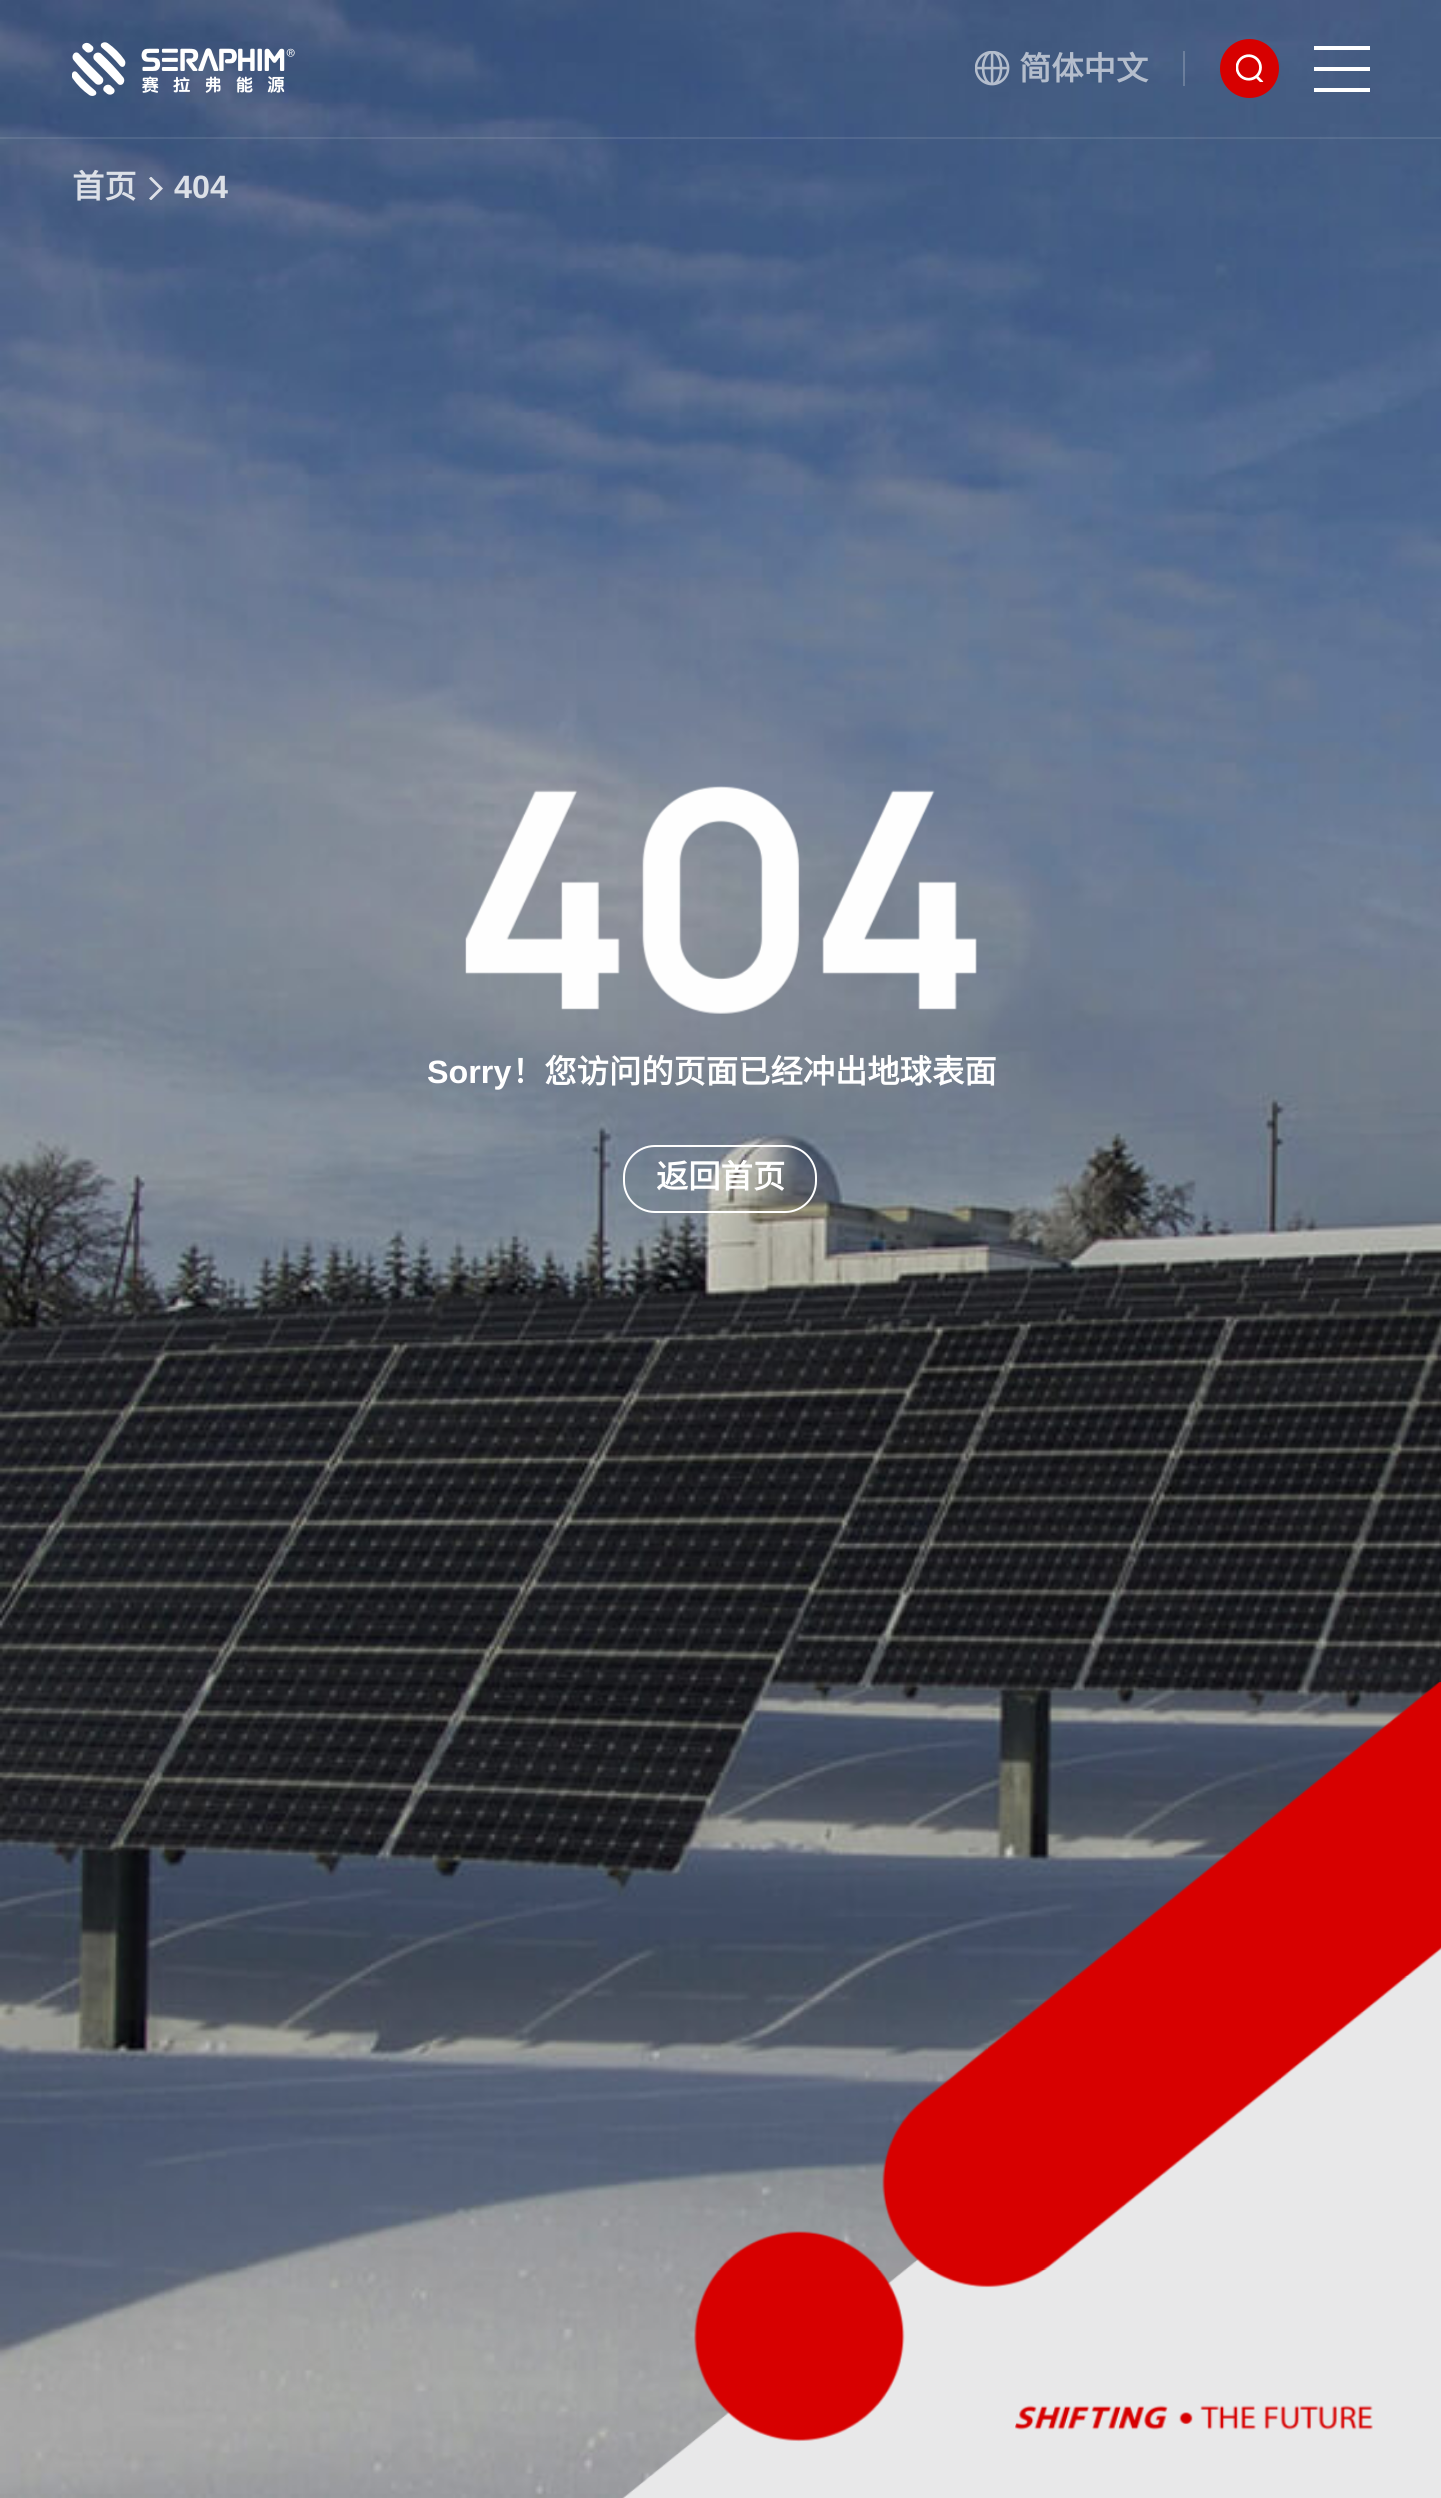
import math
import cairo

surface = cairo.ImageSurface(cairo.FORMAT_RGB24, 1441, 2498)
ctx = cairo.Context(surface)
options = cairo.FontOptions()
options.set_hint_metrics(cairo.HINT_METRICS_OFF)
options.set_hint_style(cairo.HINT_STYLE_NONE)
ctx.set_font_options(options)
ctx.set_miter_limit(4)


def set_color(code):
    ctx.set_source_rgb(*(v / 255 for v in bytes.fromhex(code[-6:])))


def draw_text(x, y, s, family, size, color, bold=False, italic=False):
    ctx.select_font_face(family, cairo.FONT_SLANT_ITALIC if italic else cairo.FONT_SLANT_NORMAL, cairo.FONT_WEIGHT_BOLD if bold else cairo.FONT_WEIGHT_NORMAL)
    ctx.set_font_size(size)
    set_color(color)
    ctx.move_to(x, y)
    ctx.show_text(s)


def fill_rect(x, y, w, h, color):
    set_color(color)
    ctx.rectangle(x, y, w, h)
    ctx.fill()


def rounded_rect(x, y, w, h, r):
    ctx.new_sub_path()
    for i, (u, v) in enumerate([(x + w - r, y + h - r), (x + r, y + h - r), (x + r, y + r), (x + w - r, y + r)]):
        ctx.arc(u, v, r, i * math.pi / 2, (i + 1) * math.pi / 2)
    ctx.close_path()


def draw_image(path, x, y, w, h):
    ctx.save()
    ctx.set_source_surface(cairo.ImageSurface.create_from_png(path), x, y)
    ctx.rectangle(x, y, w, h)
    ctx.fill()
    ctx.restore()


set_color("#ffffff")
ctx.paint()
draw_image("assets/img4.png", 0, 0, 1441, 2498)
ctx.set_source_rgba(1, 1, 1, 0.1)
ctx.rectangle(0, 137, 1441, 2)
ctx.fill()
draw_image("assets/img1.png", 72, 42, 223, 54)
draw_image("assets/img2.png", 975, 51, 35, 35)
draw_text(1019, 80, "简体中文", "Noto Sans CJK SC", 32.3, "#b4bdcc", bold=True)
ctx.set_source_rgba(1, 1, 1, 0.2)
ctx.rectangle(1183, 51, 2, 35)
ctx.fill()
set_color("#d70000")
ctx.arc(1249.5, 68.5, 29.5, 0, 2 * math.pi)
ctx.fill()
draw_image("assets/img3.png", 1236, 54, 28, 28)
fill_rect(1314, 46, 56, 4, "#ffffff")
fill_rect(1314, 67, 56, 4, "#ffffff")
fill_rect(1314, 88, 56, 4, "#ffffff")
draw_text(72, 198, "首页", "Noto Sans CJK SC", 32.3, "#dce0e7", bold=True)
ctx.save()
ctx.rectangle(149, 177, 14, 23)
ctx.clip()
ctx.set_source_rgba(1, 1, 1, 0.8)
ctx.set_fill_rule(cairo.FILL_RULE_EVEN_ODD)
ctx.new_path()
ctx.move_to(151, 176.5)
ctx.line_to(149, 178.5)
ctx.line_to(159, 188.5)
ctx.line_to(149, 198.5)
ctx.line_to(151, 200.5)
ctx.line_to(163, 188.5)
ctx.close_path()
ctx.fill()
ctx.restore()
draw_text(174, 198, "404", "Liberation Sans", 32.3, "#dce0e7", bold=True)
draw_image("assets/img6.png", 622, 1947, 819, 551)
draw_image("assets/img5.png", 694, 1682, 747, 760)
draw_image("assets/img7.png", 1015, 2405, 358, 25)
draw_image("assets/img8.png", 465, 786, 512, 228)
draw_text(427, 1083, "Sorry", "Liberation Sans", 32.3, "#ffffff", bold=True)
draw_text(512, 1083, "！您访问的页面已经冲出地球表面", "Noto Sans CJK SC", 32.3, "#ffffff", bold=True)
rounded_rect(624, 1146, 192, 66, 31)
ctx.stroke()
draw_text(656, 1188, "返回首页", "Noto Sans CJK SC", 32.3, "#ffffff", bold=True)
surface.write_to_png("output.png")
